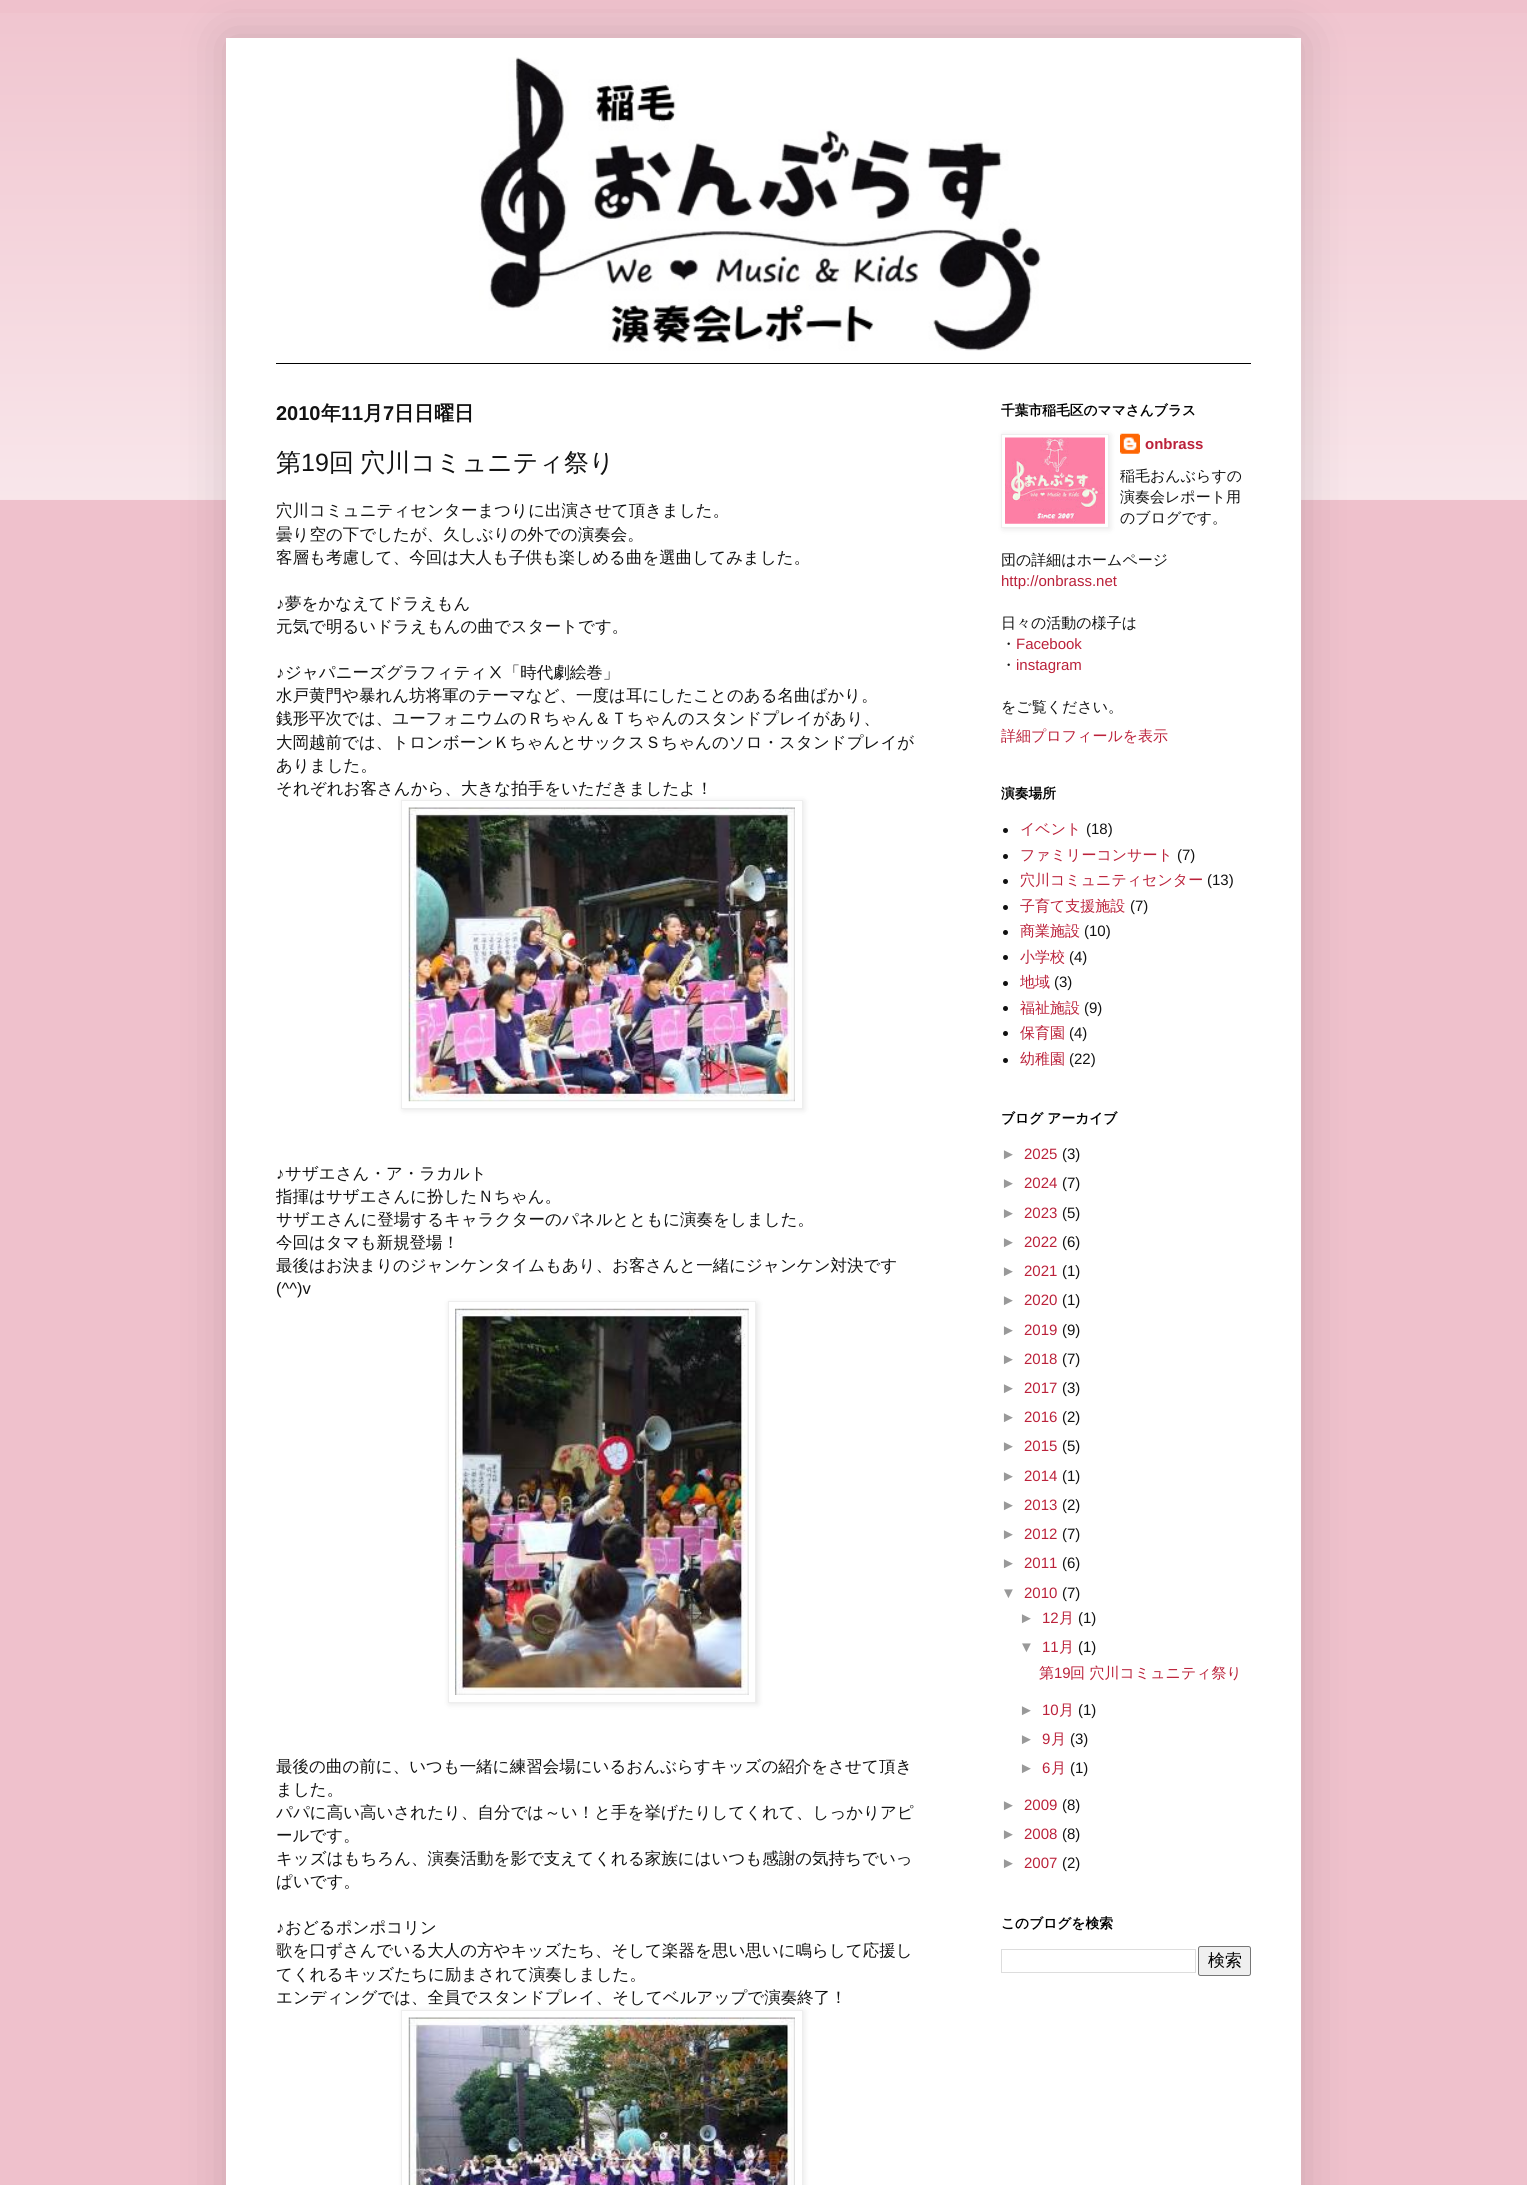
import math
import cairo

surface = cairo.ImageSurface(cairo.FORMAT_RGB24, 1527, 2185)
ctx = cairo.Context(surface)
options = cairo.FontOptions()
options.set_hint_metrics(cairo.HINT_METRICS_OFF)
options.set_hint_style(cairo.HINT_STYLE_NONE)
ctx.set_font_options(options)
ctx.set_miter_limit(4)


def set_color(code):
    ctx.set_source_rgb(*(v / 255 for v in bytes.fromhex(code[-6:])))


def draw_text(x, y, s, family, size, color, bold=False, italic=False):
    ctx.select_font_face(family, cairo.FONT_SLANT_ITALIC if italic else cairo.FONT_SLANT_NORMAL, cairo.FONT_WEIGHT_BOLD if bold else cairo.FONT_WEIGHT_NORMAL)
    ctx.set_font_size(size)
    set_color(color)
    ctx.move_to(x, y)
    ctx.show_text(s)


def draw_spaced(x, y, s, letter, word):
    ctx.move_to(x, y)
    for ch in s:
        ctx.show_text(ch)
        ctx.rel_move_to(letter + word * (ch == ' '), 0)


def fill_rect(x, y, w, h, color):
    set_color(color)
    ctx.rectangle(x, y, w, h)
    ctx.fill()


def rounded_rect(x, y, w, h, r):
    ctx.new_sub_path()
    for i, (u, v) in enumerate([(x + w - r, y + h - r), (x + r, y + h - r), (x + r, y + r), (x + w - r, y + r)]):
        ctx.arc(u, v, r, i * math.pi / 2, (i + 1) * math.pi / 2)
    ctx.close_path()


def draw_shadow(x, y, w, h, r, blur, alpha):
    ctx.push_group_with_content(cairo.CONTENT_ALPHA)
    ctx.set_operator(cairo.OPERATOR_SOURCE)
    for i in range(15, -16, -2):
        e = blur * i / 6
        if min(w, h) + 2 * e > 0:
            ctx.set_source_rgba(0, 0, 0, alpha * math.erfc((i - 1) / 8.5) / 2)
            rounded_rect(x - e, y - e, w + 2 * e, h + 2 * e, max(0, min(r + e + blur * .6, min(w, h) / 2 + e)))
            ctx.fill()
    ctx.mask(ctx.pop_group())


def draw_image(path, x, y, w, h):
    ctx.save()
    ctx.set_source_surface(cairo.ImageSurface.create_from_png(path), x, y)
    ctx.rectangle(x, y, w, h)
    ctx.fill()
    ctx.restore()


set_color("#efc1cc")
ctx.paint()
draw_image("assets/img1.png", 0, 13, 1527, 487)
set_color("#000000")
draw_shadow(226, 38, 1075, 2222, 0, 25, 0.15)
fill_rect(226, 38, 1075, 2147, "#ffffff")
draw_image("assets/img2.png", 479, 57, 562, 294)
fill_rect(276, 363, 975, 1, "#000000")
draw_text(276, 420, "2010", "Liberation Sans", 20, "#111111", bold=True)
draw_text(321, 420, "年", "WenQuanYi Zen Hei", 20, "#111111", bold=True)
draw_text(341, 420, "11", "Liberation Sans", 20, "#111111", bold=True)
draw_text(363, 420, "月", "WenQuanYi Zen Hei", 20, "#111111", bold=True)
draw_text(383, 420, "7", "Liberation Sans", 20, "#111111", bold=True)
draw_text(394, 420, "日日曜日", "WenQuanYi Zen Hei", 20, "#111111", bold=True)
draw_text(276, 471, "第", "WenQuanYi Zen Hei Medium", 25, "#111111")
draw_text(301, 471, "19", "Liberation Sans", 25, "#111111")
ctx.select_font_face("WenQuanYi Zen Hei Medium")
draw_spaced(329, 471, "回 穴川コミュニティ祭り", 0, -1)
draw_text(276, 516, "穴川コミュニティセンターまつりに出演させて頂きました。", "WenQuanYi Zen Hei Medium", 16.5, "#111111")
draw_text(276, 540, "曇り空の下でしたが、久しぶりの外での演奏会。", "WenQuanYi Zen Hei Medium", 16.5, "#111111")
draw_text(276, 563, "客層も考慮して、今回は大人も子供も楽しめる曲を選曲してみました。", "WenQuanYi Zen Hei Medium", 16.5, "#111111")
draw_text(276, 609, "♪", "Liberation Sans", 16.5, "#111111")
draw_text(285, 609, "夢をかなえてドラえもん", "WenQuanYi Zen Hei Medium", 16.5, "#111111")
draw_text(276, 632, "元気で明るいドラえもんの曲でスタートです。", "WenQuanYi Zen Hei Medium", 16.5, "#111111")
draw_text(276, 678, "♪", "Liberation Sans", 16.5, "#111111")
draw_text(285, 678, "ジャパニーズグラフィティⅩ「時代劇絵巻」", "WenQuanYi Zen Hei Medium", 16.5, "#111111")
draw_text(276, 701, "水戸黄門や暴れん坊将軍のテーマなど、一度は耳にしたことのある名曲ばかり。", "WenQuanYi Zen Hei Medium", 16.5, "#111111")
draw_text(276, 724, "銭形平次では、ユーフォニウムのＲちゃん＆Ｔちゃんのスタンドプレイがあり、", "WenQuanYi Zen Hei Medium", 16.5, "#111111")
draw_text(276, 748, "大岡越前では、トロンボーンＫちゃんとサックスＳちゃんのソロ・スタンドプレイが", "WenQuanYi Zen Hei Medium", 16.5, "#111111")
draw_text(276, 771, "ありました。", "WenQuanYi Zen Hei Medium", 16.5, "#111111")
draw_text(276, 794, "それぞれお客さんから、大きな拍手をいただきましたよ！", "WenQuanYi Zen Hei Medium", 16.5, "#111111")
set_color("#000000")
draw_shadow(403, 801, 401, 309, 0, 3, 0.1)
set_color("#ffffff")
ctx.rectangle(401.5, 800.5, 401, 308)
ctx.fill_preserve()
set_color("#eeeeee")
ctx.set_line_width(1)
ctx.stroke()
draw_image("assets/img3.png", 408, 807, 387, 295)
draw_text(276, 1179, "♪", "Liberation Sans", 16.5, "#111111")
draw_text(285, 1179, "サザエさん・ア・ラカルト", "WenQuanYi Zen Hei Medium", 16.5, "#111111")
draw_text(276, 1202, "指揮はサザエさんに扮したＮちゃん。", "WenQuanYi Zen Hei Medium", 16.5, "#111111")
draw_text(276, 1225, "サザエさんに登場するキャラクターのパネルとともに演奏をしました。", "WenQuanYi Zen Hei Medium", 16.5, "#111111")
draw_text(276, 1248, "今回はタマも新規登場！", "WenQuanYi Zen Hei Medium", 16.5, "#111111")
draw_text(276, 1271, "最後はお決まりのジャンケンタイムもあり、お客さんと一緒にジャンケン対決です", "WenQuanYi Zen Hei Medium", 16.5, "#111111")
draw_text(276, 1294, "(^^)v", "Liberation Sans", 16.5, "#111111")
set_color("#000000")
draw_shadow(449, 1303, 309, 401, 0, 3, 0.1)
set_color("#ffffff")
ctx.rectangle(448.5, 1301.5, 307, 401)
ctx.fill_preserve()
set_color("#eeeeee")
ctx.stroke()
draw_image("assets/img4.png", 455, 1308, 294, 387)
draw_text(276, 1772, "最後の曲の前に、いつも一緒に練習会場にいるおんぶらすキッズの紹介をさせて頂き", "WenQuanYi Zen Hei Medium", 16.5, "#111111")
draw_text(276, 1795, "ました。", "WenQuanYi Zen Hei Medium", 16.5, "#111111")
draw_text(276, 1818, "パパに高い高いされたり、自分では～い！と手を挙げたりしてくれて、しっかりアピ", "WenQuanYi Zen Hei Medium", 16.5, "#111111")
draw_text(276, 1841, "ールです。", "WenQuanYi Zen Hei Medium", 16.5, "#111111")
draw_text(276, 1864, "キッズはもちろん、演奏活動を影で支えてくれる家族にはいつも感謝の気持ちでいっ", "WenQuanYi Zen Hei Medium", 16.5, "#111111")
draw_text(276, 1887, "ぱいです。", "WenQuanYi Zen Hei Medium", 16.5, "#111111")
draw_text(276, 1933, "♪", "Liberation Sans", 16.5, "#111111")
draw_text(285, 1933, "おどるポンポコリン", "WenQuanYi Zen Hei Medium", 16.5, "#111111")
draw_text(276, 1956, "歌を口ずさんでいる大人の方やキッズたち、そして楽器を思い思いに鳴らして応援し", "WenQuanYi Zen Hei Medium", 16.5, "#111111")
draw_text(276, 1980, "てくれるキッズたちに励まされて演奏しました。", "WenQuanYi Zen Hei Medium", 16.5, "#111111")
draw_text(276, 2003, "エンディングでは、全員でスタンドプレイ、そしてベルアップで演奏終了！", "WenQuanYi Zen Hei Medium", 16.5, "#111111")
set_color("#000000")
draw_shadow(403, 2011, 401, 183, 0, 3, 0.1)
set_color("#ffffff")
ctx.rectangle(401.5, 2010.5, 401, 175)
ctx.fill_preserve()
set_color("#eeeeee")
ctx.stroke()
draw_image("assets/img5.png", 408, 2017, 387, 168)
draw_text(1001, 415, "千葉市稲毛区のママさんブラス", "WenQuanYi Zen Hei", 13.75, "#000000", bold=True)
set_color("#000000")
draw_shadow(1003, 435, 107, 94, 0, 3, 0.1)
set_color("#ffffff")
ctx.rectangle(1001.5, 434.5, 107, 93)
ctx.fill_preserve()
set_color("#eeeeee")
ctx.stroke()
draw_image("assets/img6.png", 1005, 437, 100, 87)
draw_image("assets/img7.png", 1120, 433, 20, 21)
draw_text(1145, 449, "onbrass", "Liberation Sans", 15, "#bb213a", bold=True)
draw_text(1120, 481, "稲毛おんぶらすの", "WenQuanYi Zen Hei Medium", 15, "#111111")
draw_text(1120, 502, "演奏会レポート用", "WenQuanYi Zen Hei Medium", 15, "#111111")
draw_text(1120, 523, "のブログです。", "WenQuanYi Zen Hei Medium", 15, "#111111")
draw_text(1001, 565, "団の詳細はホームページ", "WenQuanYi Zen Hei Medium", 15, "#111111")
draw_text(1001, 586, "http://onbrass.net", "Liberation Sans", 15, "#bb213a")
draw_text(1001, 628, "日々の活動の様子は", "WenQuanYi Zen Hei Medium", 15, "#111111")
draw_text(1001, 649, "・", "WenQuanYi Zen Hei Medium", 15, "#111111")
draw_text(1016, 649, "Facebook", "Liberation Sans", 15, "#bb213a")
draw_text(1001, 670, "・", "WenQuanYi Zen Hei Medium", 15, "#111111")
draw_text(1016, 670, "instagram", "Liberation Sans", 15, "#bb213a")
draw_text(1001, 712, "をご覧ください。", "WenQuanYi Zen Hei Medium", 15, "#111111")
draw_text(1001, 741, "詳細プロフィールを表示", "WenQuanYi Zen Hei Medium", 15, "#bb213a")
draw_text(1001, 798, "演奏場所", "WenQuanYi Zen Hei", 13.75, "#000000", bold=True)
set_color("#111111")
ctx.new_path()
ctx.arc(1005.5, 830.5, 2.5, 0, 2 * math.pi)
ctx.fill()
draw_text(1020, 834, "イベント", "WenQuanYi Zen Hei Medium", 15, "#bb213a")
draw_text(1086, 834, "(18)", "Liberation Sans", 15, "#111111")
ctx.new_path()
ctx.arc(1005.5, 856.5, 2.5, 0, 2 * math.pi)
ctx.fill()
draw_text(1020, 860, "ファミリーコンサート", "WenQuanYi Zen Hei Medium", 15, "#bb213a")
draw_text(1177, 860, "(7)", "Liberation Sans", 15, "#111111")
ctx.new_path()
ctx.arc(1005.5, 881.5, 2.5, 0, 2 * math.pi)
ctx.fill()
draw_text(1020, 885, "穴川コミュニティセンター", "WenQuanYi Zen Hei Medium", 15, "#bb213a")
draw_text(1207, 885, "(13)", "Liberation Sans", 15, "#111111")
ctx.new_path()
ctx.arc(1005.5, 907.5, 2.5, 0, 2 * math.pi)
ctx.fill()
draw_text(1020, 911, "子育て支援施設", "WenQuanYi Zen Hei Medium", 15, "#bb213a")
draw_text(1130, 911, "(7)", "Liberation Sans", 15, "#111111")
ctx.new_path()
ctx.arc(1005.5, 932.5, 2.5, 0, 2 * math.pi)
ctx.fill()
draw_text(1020, 936, "商業施設", "WenQuanYi Zen Hei Medium", 15, "#bb213a")
draw_text(1084, 936, "(10)", "Liberation Sans", 15, "#111111")
ctx.new_path()
ctx.arc(1005.5, 957.5, 2.5, 0, 2 * math.pi)
ctx.fill()
draw_text(1020, 962, "小学校", "WenQuanYi Zen Hei Medium", 15, "#bb213a")
draw_text(1069, 962, "(4)", "Liberation Sans", 15, "#111111")
ctx.new_path()
ctx.arc(1005.5, 983.5, 2.5, 0, 2 * math.pi)
ctx.fill()
draw_text(1020, 987, "地域", "WenQuanYi Zen Hei Medium", 15, "#bb213a")
draw_text(1054, 987, "(3)", "Liberation Sans", 15, "#111111")
ctx.new_path()
ctx.arc(1005.5, 1008.5, 2.5, 0, 2 * math.pi)
ctx.fill()
draw_text(1020, 1013, "福祉施設", "WenQuanYi Zen Hei Medium", 15, "#bb213a")
draw_text(1084, 1013, "(9)", "Liberation Sans", 15, "#111111")
ctx.new_path()
ctx.arc(1005.5, 1033.5, 2.5, 0, 2 * math.pi)
ctx.fill()
draw_text(1020, 1038, "保育園", "WenQuanYi Zen Hei Medium", 15, "#bb213a")
draw_text(1069, 1038, "(4)", "Liberation Sans", 15, "#111111")
ctx.new_path()
ctx.arc(1005.5, 1060.5, 2.5, 0, 2 * math.pi)
ctx.fill()
draw_text(1020, 1064, "幼稚園", "WenQuanYi Zen Hei Medium", 15, "#bb213a")
draw_text(1069, 1064, "(22)", "Liberation Sans", 15, "#111111")
draw_text(1001, 1123, "ブログ アーカイブ", "WenQuanYi Zen Hei", 13.75, "#000000", bold=True)
draw_text(1001, 1159, "►", "Liberation Sans", 15, "#999999")
draw_text(1024, 1159, "2025", "Liberation Sans", 15, "#bb213a")
draw_text(1062, 1159, "(3)", "Liberation Sans", 15, "#111111")
draw_text(1001, 1188, "►", "Liberation Sans", 15, "#999999")
draw_text(1024, 1188, "2024", "Liberation Sans", 15, "#bb213a")
draw_text(1062, 1188, "(7)", "Liberation Sans", 15, "#111111")
draw_text(1001, 1218, "►", "Liberation Sans", 15, "#999999")
draw_text(1024, 1218, "2023", "Liberation Sans", 15, "#bb213a")
draw_text(1062, 1218, "(5)", "Liberation Sans", 15, "#111111")
draw_text(1001, 1247, "►", "Liberation Sans", 15, "#999999")
draw_text(1024, 1247, "2022", "Liberation Sans", 15, "#bb213a")
draw_text(1062, 1247, "(6)", "Liberation Sans", 15, "#111111")
draw_text(1001, 1276, "►", "Liberation Sans", 15, "#999999")
draw_text(1024, 1276, "2021", "Liberation Sans", 15, "#bb213a")
draw_text(1062, 1276, "(1)", "Liberation Sans", 15, "#111111")
draw_text(1001, 1305, "►", "Liberation Sans", 15, "#999999")
draw_text(1024, 1305, "2020", "Liberation Sans", 15, "#bb213a")
draw_text(1062, 1305, "(1)", "Liberation Sans", 15, "#111111")
draw_text(1001, 1335, "►", "Liberation Sans", 15, "#999999")
draw_text(1024, 1335, "2019", "Liberation Sans", 15, "#bb213a")
draw_text(1062, 1335, "(9)", "Liberation Sans", 15, "#111111")
draw_text(1001, 1364, "►", "Liberation Sans", 15, "#999999")
draw_text(1024, 1364, "2018", "Liberation Sans", 15, "#bb213a")
draw_text(1062, 1364, "(7)", "Liberation Sans", 15, "#111111")
draw_text(1001, 1393, "►", "Liberation Sans", 15, "#999999")
draw_text(1024, 1393, "2017", "Liberation Sans", 15, "#bb213a")
draw_text(1062, 1393, "(3)", "Liberation Sans", 15, "#111111")
draw_text(1001, 1422, "►", "Liberation Sans", 15, "#999999")
draw_text(1024, 1422, "2016", "Liberation Sans", 15, "#bb213a")
draw_text(1062, 1422, "(2)", "Liberation Sans", 15, "#111111")
draw_text(1001, 1451, "►", "Liberation Sans", 15, "#999999")
draw_text(1024, 1451, "2015", "Liberation Sans", 15, "#bb213a")
draw_text(1062, 1451, "(5)", "Liberation Sans", 15, "#111111")
draw_text(1001, 1481, "►", "Liberation Sans", 15, "#999999")
draw_text(1024, 1481, "2014", "Liberation Sans", 15, "#bb213a")
draw_text(1062, 1481, "(1)", "Liberation Sans", 15, "#111111")
draw_text(1001, 1510, "►", "Liberation Sans", 15, "#999999")
draw_text(1024, 1510, "2013", "Liberation Sans", 15, "#bb213a")
draw_text(1062, 1510, "(2)", "Liberation Sans", 15, "#111111")
draw_text(1001, 1539, "►", "Liberation Sans", 15, "#999999")
draw_text(1024, 1539, "2012", "Liberation Sans", 15, "#bb213a")
draw_text(1062, 1539, "(7)", "Liberation Sans", 15, "#111111")
draw_text(1001, 1568, "►", "Liberation Sans", 15, "#999999")
draw_text(1024, 1568, "2011", "Liberation Sans", 15, "#bb213a")
draw_text(1062, 1568, "(6)", "Liberation Sans", 15, "#111111")
draw_text(1001, 1598, "▼", "Liberation Sans", 15, "#999999")
draw_text(1024, 1598, "2010", "Liberation Sans", 15, "#bb213a")
draw_text(1062, 1598, "(7)", "Liberation Sans", 15, "#111111")
draw_text(1019, 1623, "►", "Liberation Sans", 15, "#999999")
draw_text(1042, 1623, "12", "Liberation Sans", 15, "#bb213a")
draw_text(1059, 1623, "月", "WenQuanYi Zen Hei Medium", 15, "#bb213a")
draw_text(1078, 1623, "(1)", "Liberation Sans", 15, "#111111")
draw_text(1019, 1652, "▼", "Liberation Sans", 15, "#999999")
draw_text(1042, 1652, "11", "Liberation Sans", 15, "#bb213a")
draw_text(1059, 1652, "月", "WenQuanYi Zen Hei Medium", 15, "#bb213a")
draw_text(1078, 1652, "(1)", "Liberation Sans", 15, "#111111")
draw_text(1039, 1678, "第", "WenQuanYi Zen Hei Medium", 15, "#bb213a")
draw_text(1054, 1678, "19", "Liberation Sans", 15, "#bb213a")
draw_text(1070, 1678, "回 穴川コミュニティ祭り", "WenQuanYi Zen Hei Medium", 15, "#bb213a")
draw_text(1019, 1715, "►", "Liberation Sans", 15, "#999999")
draw_text(1042, 1715, "10", "Liberation Sans", 15, "#bb213a")
draw_text(1059, 1715, "月", "WenQuanYi Zen Hei Medium", 15, "#bb213a")
draw_text(1078, 1715, "(1)", "Liberation Sans", 15, "#111111")
draw_text(1019, 1744, "►", "Liberation Sans", 15, "#999999")
draw_text(1042, 1744, "9", "Liberation Sans", 15, "#bb213a")
draw_text(1051, 1744, "月", "WenQuanYi Zen Hei Medium", 15, "#bb213a")
draw_text(1070, 1744, "(3)", "Liberation Sans", 15, "#111111")
draw_text(1019, 1773, "►", "Liberation Sans", 15, "#999999")
draw_text(1042, 1773, "6", "Liberation Sans", 15, "#bb213a")
draw_text(1051, 1773, "月", "WenQuanYi Zen Hei Medium", 15, "#bb213a")
draw_text(1070, 1773, "(1)", "Liberation Sans", 15, "#111111")
draw_text(1001, 1810, "►", "Liberation Sans", 15, "#999999")
draw_text(1024, 1810, "2009", "Liberation Sans", 15, "#bb213a")
draw_text(1062, 1810, "(8)", "Liberation Sans", 15, "#111111")
draw_text(1001, 1839, "►", "Liberation Sans", 15, "#999999")
draw_text(1024, 1839, "2008", "Liberation Sans", 15, "#bb213a")
draw_text(1062, 1839, "(8)", "Liberation Sans", 15, "#111111")
draw_text(1001, 1868, "►", "Liberation Sans", 15, "#999999")
draw_text(1024, 1868, "2007", "Liberation Sans", 15, "#bb213a")
draw_text(1062, 1868, "(2)", "Liberation Sans", 15, "#111111")
draw_text(1001, 1928, "このブログを検索", "WenQuanYi Zen Hei", 13.75, "#000000", bold=True)
ctx.rectangle(1001.5, 1949.5, 194, 23)
set_color("#dddddd")
ctx.stroke()
set_color("#efefef")
rounded_rect(1198.5, 1946.5, 52, 29, 2)
ctx.fill_preserve()
set_color("#767676")
ctx.stroke()
draw_text(1208, 1966, "検索", "WenQuanYi Zen Hei Medium", 17, "#000000")
surface.write_to_png("output.png")
